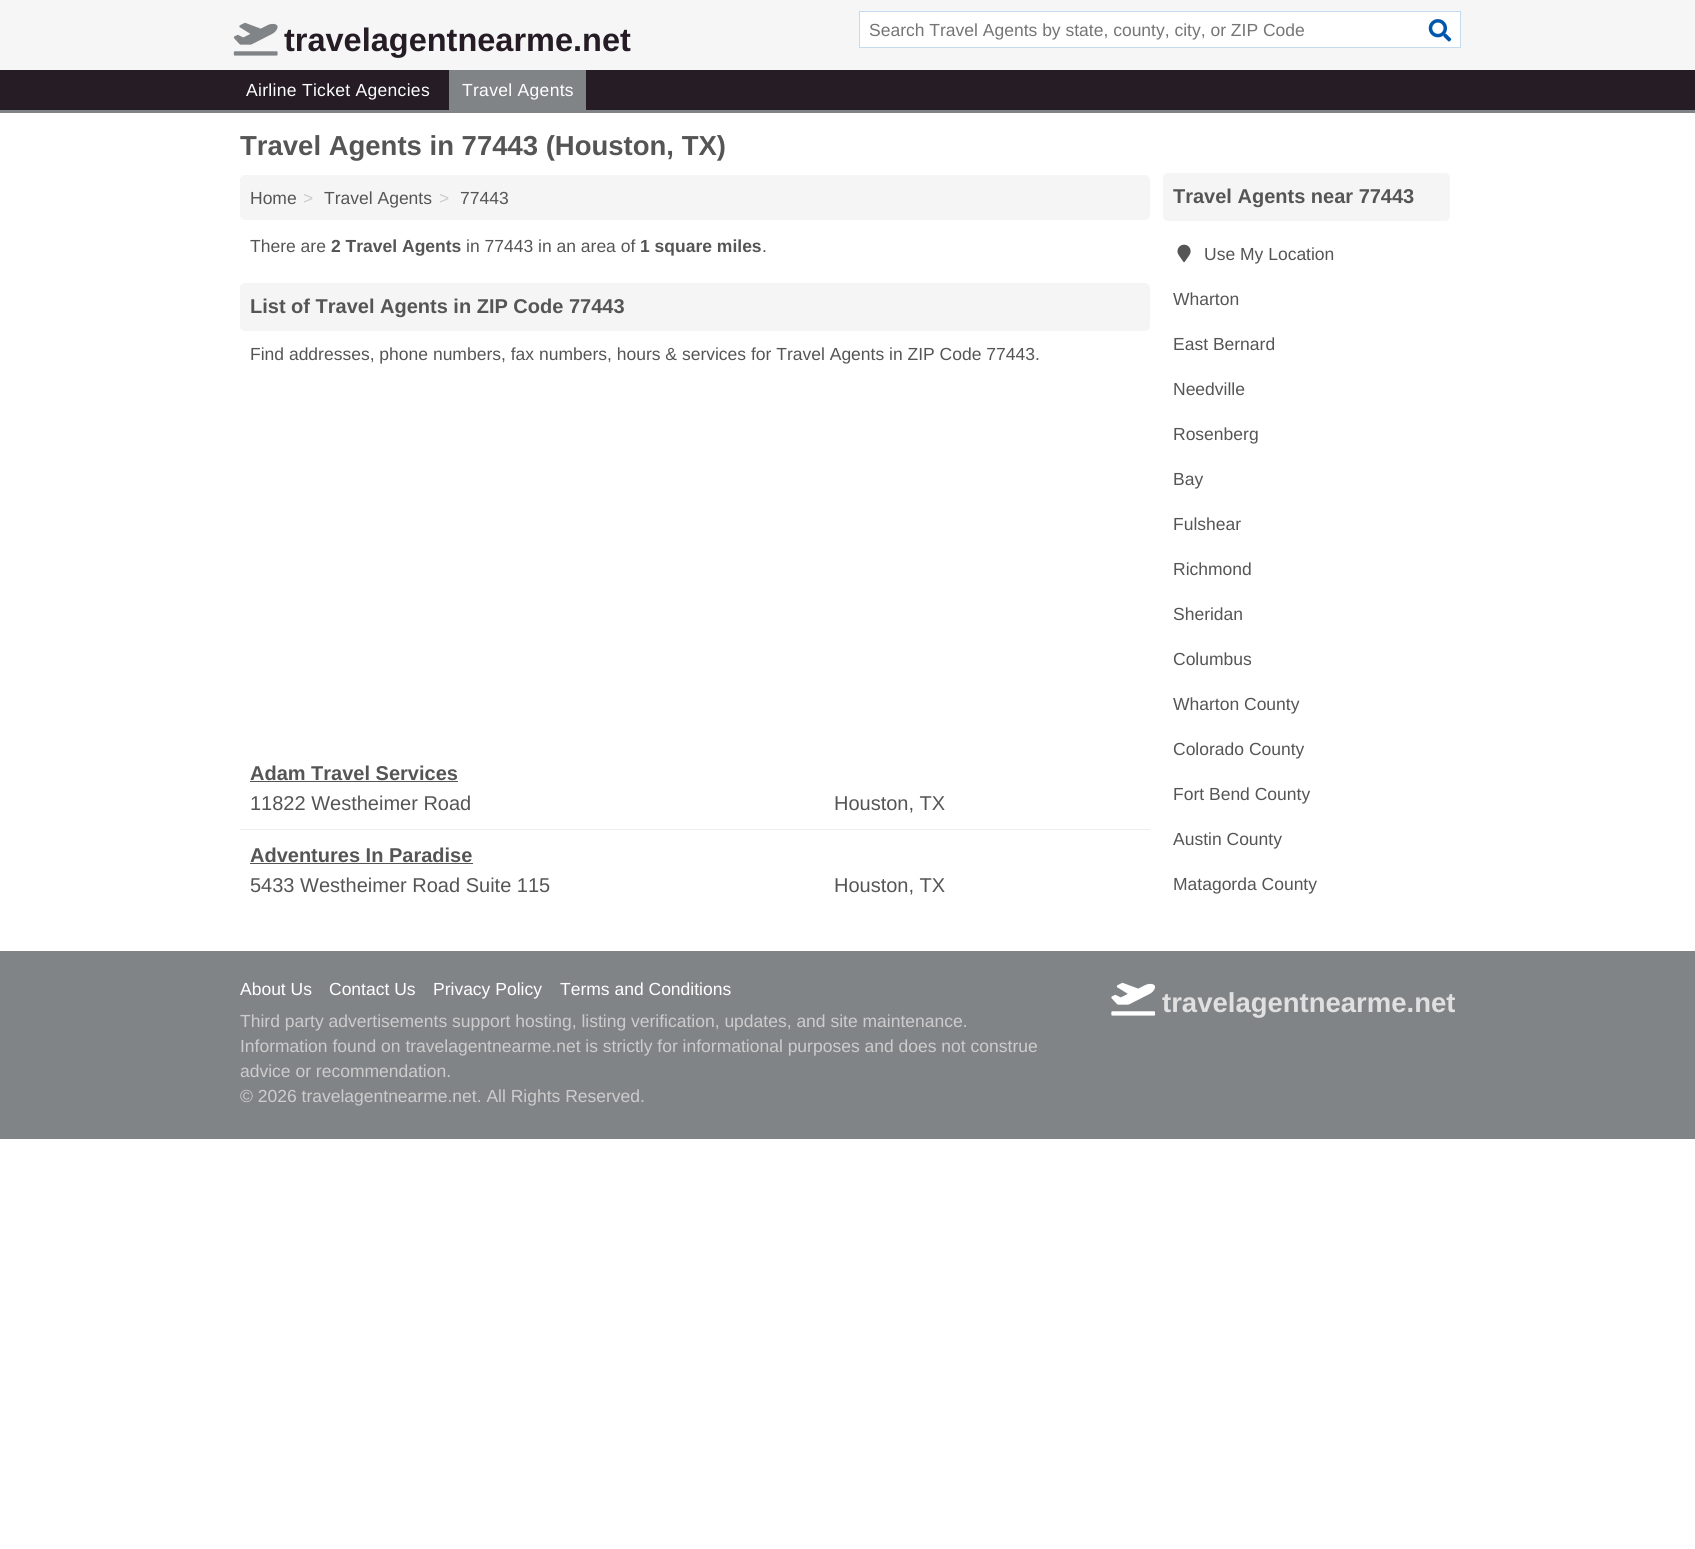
import math
import cairo

surface = cairo.ImageSurface(cairo.FORMAT_RGB24, 1695, 1549)
ctx = cairo.Context(surface)
options = cairo.FontOptions()
options.set_hint_metrics(cairo.HINT_METRICS_OFF)
options.set_hint_style(cairo.HINT_STYLE_NONE)
ctx.set_font_options(options)
ctx.set_miter_limit(4)


def set_color(code):
    ctx.set_source_rgb(*(v / 255 for v in bytes.fromhex(code[-6:])))


def draw_text(x, y, s, family, size, color, bold=False, italic=False):
    ctx.select_font_face(family, cairo.FONT_SLANT_ITALIC if italic else cairo.FONT_SLANT_NORMAL, cairo.FONT_WEIGHT_BOLD if bold else cairo.FONT_WEIGHT_NORMAL)
    ctx.set_font_size(size)
    set_color(color)
    ctx.move_to(x, y)
    ctx.show_text(s)


def draw_spaced(x, y, s, letter, word):
    ctx.move_to(x, y)
    for ch in s:
        ctx.show_text(ch)
        ctx.rel_move_to(letter + word * (ch == ' '), 0)


def fill_rect(x, y, w, h, color):
    set_color(color)
    ctx.rectangle(x, y, w, h)
    ctx.fill()


def rounded_rect(x, y, w, h, r):
    ctx.new_sub_path()
    for i, (u, v) in enumerate([(x + w - r, y + h - r), (x + r, y + h - r), (x + r, y + r), (x + w - r, y + r)]):
        ctx.arc(u, v, r, i * math.pi / 2, (i + 1) * math.pi / 2)
    ctx.close_path()


def draw_image(path, x, y, w, h):
    ctx.save()
    ctx.set_source_surface(cairo.ImageSurface.create_from_png(path), x, y)
    ctx.rectangle(x, y, w, h)
    ctx.fill()
    ctx.restore()


set_color("#ffffff")
ctx.paint()
fill_rect(0, 0, 1695, 70, "#f6f6f6")
fill_rect(0, 110, 1695, 3, "#818486")
draw_image("assets/img1.png", 233, 22, 45, 34)
draw_text(284, 51, "travelagentnearme.net", "Liberation Sans", 32.5, "#251c26", bold=True)
set_color("#ffffff")
ctx.rectangle(859.5, 11.5, 601, 36)
ctx.fill_preserve()
set_color("#c5daed")
ctx.set_line_width(1)
ctx.stroke()
draw_text(869, 36, "Search Travel Agents by state, county, city, or ZIP Code", "Liberation Sans", 17.5, "#757575")
draw_image("assets/img2.png", 1428, 19, 24, 23)
fill_rect(0, 70, 1695, 40, "#251c26")
set_color("#ffffff")
draw_spaced(246, 96, "Airline Ticket Agencies", 0.3, 0)
fill_rect(449, 70, 137, 40, "#818486")
set_color("#ffffff")
draw_spaced(462, 96, "Travel Agents", 0.3, 0)
draw_text(240, 155, "Travel Agents in 77443 (Houston, TX)", "Liberation Sans", 27.5, "#555555", bold=True)
set_color("#f5f5f5")
rounded_rect(240, 175, 910, 45, 5)
ctx.fill()
draw_text(250, 204, "Home", "Liberation Sans", 17.5, "#555555")
draw_text(303, 204, ">", "Liberation Sans", 17.5, "#cccccc")
draw_text(324, 204, "Travel Agents", "Liberation Sans", 17.5, "#555555")
draw_text(439, 204, ">", "Liberation Sans", 17.5, "#cccccc")
draw_text(460, 204, "77443", "Liberation Sans", 17.5, "#555555")
draw_text(250, 252, "There are", "Liberation Sans", 17.5, "#555555")
draw_text(331, 252, "2 Travel Agents", "Liberation Sans", 17.5, "#555555", bold=True)
draw_text(466, 252, "in 77443 in an area of", "Liberation Sans", 17.5, "#555555")
draw_text(640, 252, "1 square miles", "Liberation Sans", 17.5, "#555555", bold=True)
draw_text(762, 252, ".", "Liberation Sans", 17.5, "#555555")
set_color("#f5f5f5")
rounded_rect(240, 283, 910, 48, 5)
ctx.fill()
draw_text(250, 313, "List of Travel Agents in ZIP Code 77443", "Liberation Sans", 20, "#555555", bold=True)
draw_text(250, 360, "Find addresses, phone numbers, fax numbers, hours & services for Travel Agents in ZIP Code 77443.", "Liberation Sans", 17.5, "#555555")
draw_text(250, 780, "Adam Travel Services", "Liberation Sans", 20, "#555555", bold=True)
fill_rect(250, 781, 208, 1, "#555555")
draw_text(250, 810, "11822 Westheimer Road", "Liberation Sans", 20, "#555555")
draw_text(834, 810, "Houston, TX", "Liberation Sans", 20, "#555555")
fill_rect(240, 829, 910, 1, "#eeeeee")
draw_text(250, 862, "Adventures In Paradise", "Liberation Sans", 20, "#555555", bold=True)
fill_rect(250, 863, 223, 1, "#555555")
draw_text(250, 892, "5433 Westheimer Road Suite 115", "Liberation Sans", 20, "#555555")
draw_text(834, 892, "Houston, TX", "Liberation Sans", 20, "#555555")
set_color("#f5f5f5")
rounded_rect(1163, 173, 287, 48, 5)
ctx.fill()
draw_text(1173, 203, "Travel Agents near 77443", "Liberation Sans", 20, "#555555", bold=True)
draw_image("assets/img3.png", 1177, 244, 14, 19)
draw_text(1204, 260, "Use My Location", "Liberation Sans", 17.5, "#555555")
draw_text(1173, 305, "Wharton", "Liberation Sans", 17.5, "#555555")
draw_text(1173, 350, "East Bernard", "Liberation Sans", 17.5, "#555555")
draw_text(1173, 395, "Needville", "Liberation Sans", 17.5, "#555555")
draw_text(1173, 440, "Rosenberg", "Liberation Sans", 17.5, "#555555")
draw_text(1173, 485, "Bay", "Liberation Sans", 17.5, "#555555")
draw_text(1173, 530, "Fulshear", "Liberation Sans", 17.5, "#555555")
draw_text(1173, 575, "Richmond", "Liberation Sans", 17.5, "#555555")
draw_text(1173, 620, "Sheridan", "Liberation Sans", 17.5, "#555555")
draw_text(1173, 665, "Columbus", "Liberation Sans", 17.5, "#555555")
draw_text(1173, 710, "Wharton County", "Liberation Sans", 17.5, "#555555")
draw_text(1173, 755, "Colorado County", "Liberation Sans", 17.5, "#555555")
draw_text(1173, 800, "Fort Bend County", "Liberation Sans", 17.5, "#555555")
draw_text(1173, 845, "Austin County", "Liberation Sans", 17.5, "#555555")
draw_text(1173, 890, "Matagorda County", "Liberation Sans", 17.5, "#555555")
fill_rect(0, 951, 1695, 188, "#818486")
draw_text(240, 995, "About Us", "Liberation Sans", 17.5, "#ffffff")
draw_text(329, 995, "Contact Us", "Liberation Sans", 17.5, "#ffffff")
draw_text(433, 995, "Privacy Policy", "Liberation Sans", 17.5, "#ffffff")
draw_text(560, 995, "Terms and Conditions", "Liberation Sans", 17.5, "#ffffff")
draw_text(240, 1027, "Third party advertisements support hosting, listing verification, updates, and site maintenance.", "Liberation Sans", 17.5, "#cccccc")
draw_text(240, 1052, "Information found on travelagentnearme.net is strictly for informational purposes and does not construe", "Liberation Sans", 17.5, "#cccccc")
draw_text(240, 1077, "advice or recommendation.", "Liberation Sans", 17.5, "#cccccc")
draw_text(240, 1102, "© 2026 travelagentnearme.net. All Rights Reserved.", "Liberation Sans", 17.5, "#cccccc")
draw_image("assets/img4.png", 1111, 982, 45, 34)
draw_text(1162, 1012, "travelagentnearme.net", "Liberation Sans", 27.5, "#e0e0e1", bold=True)
surface.write_to_png("output.png")
